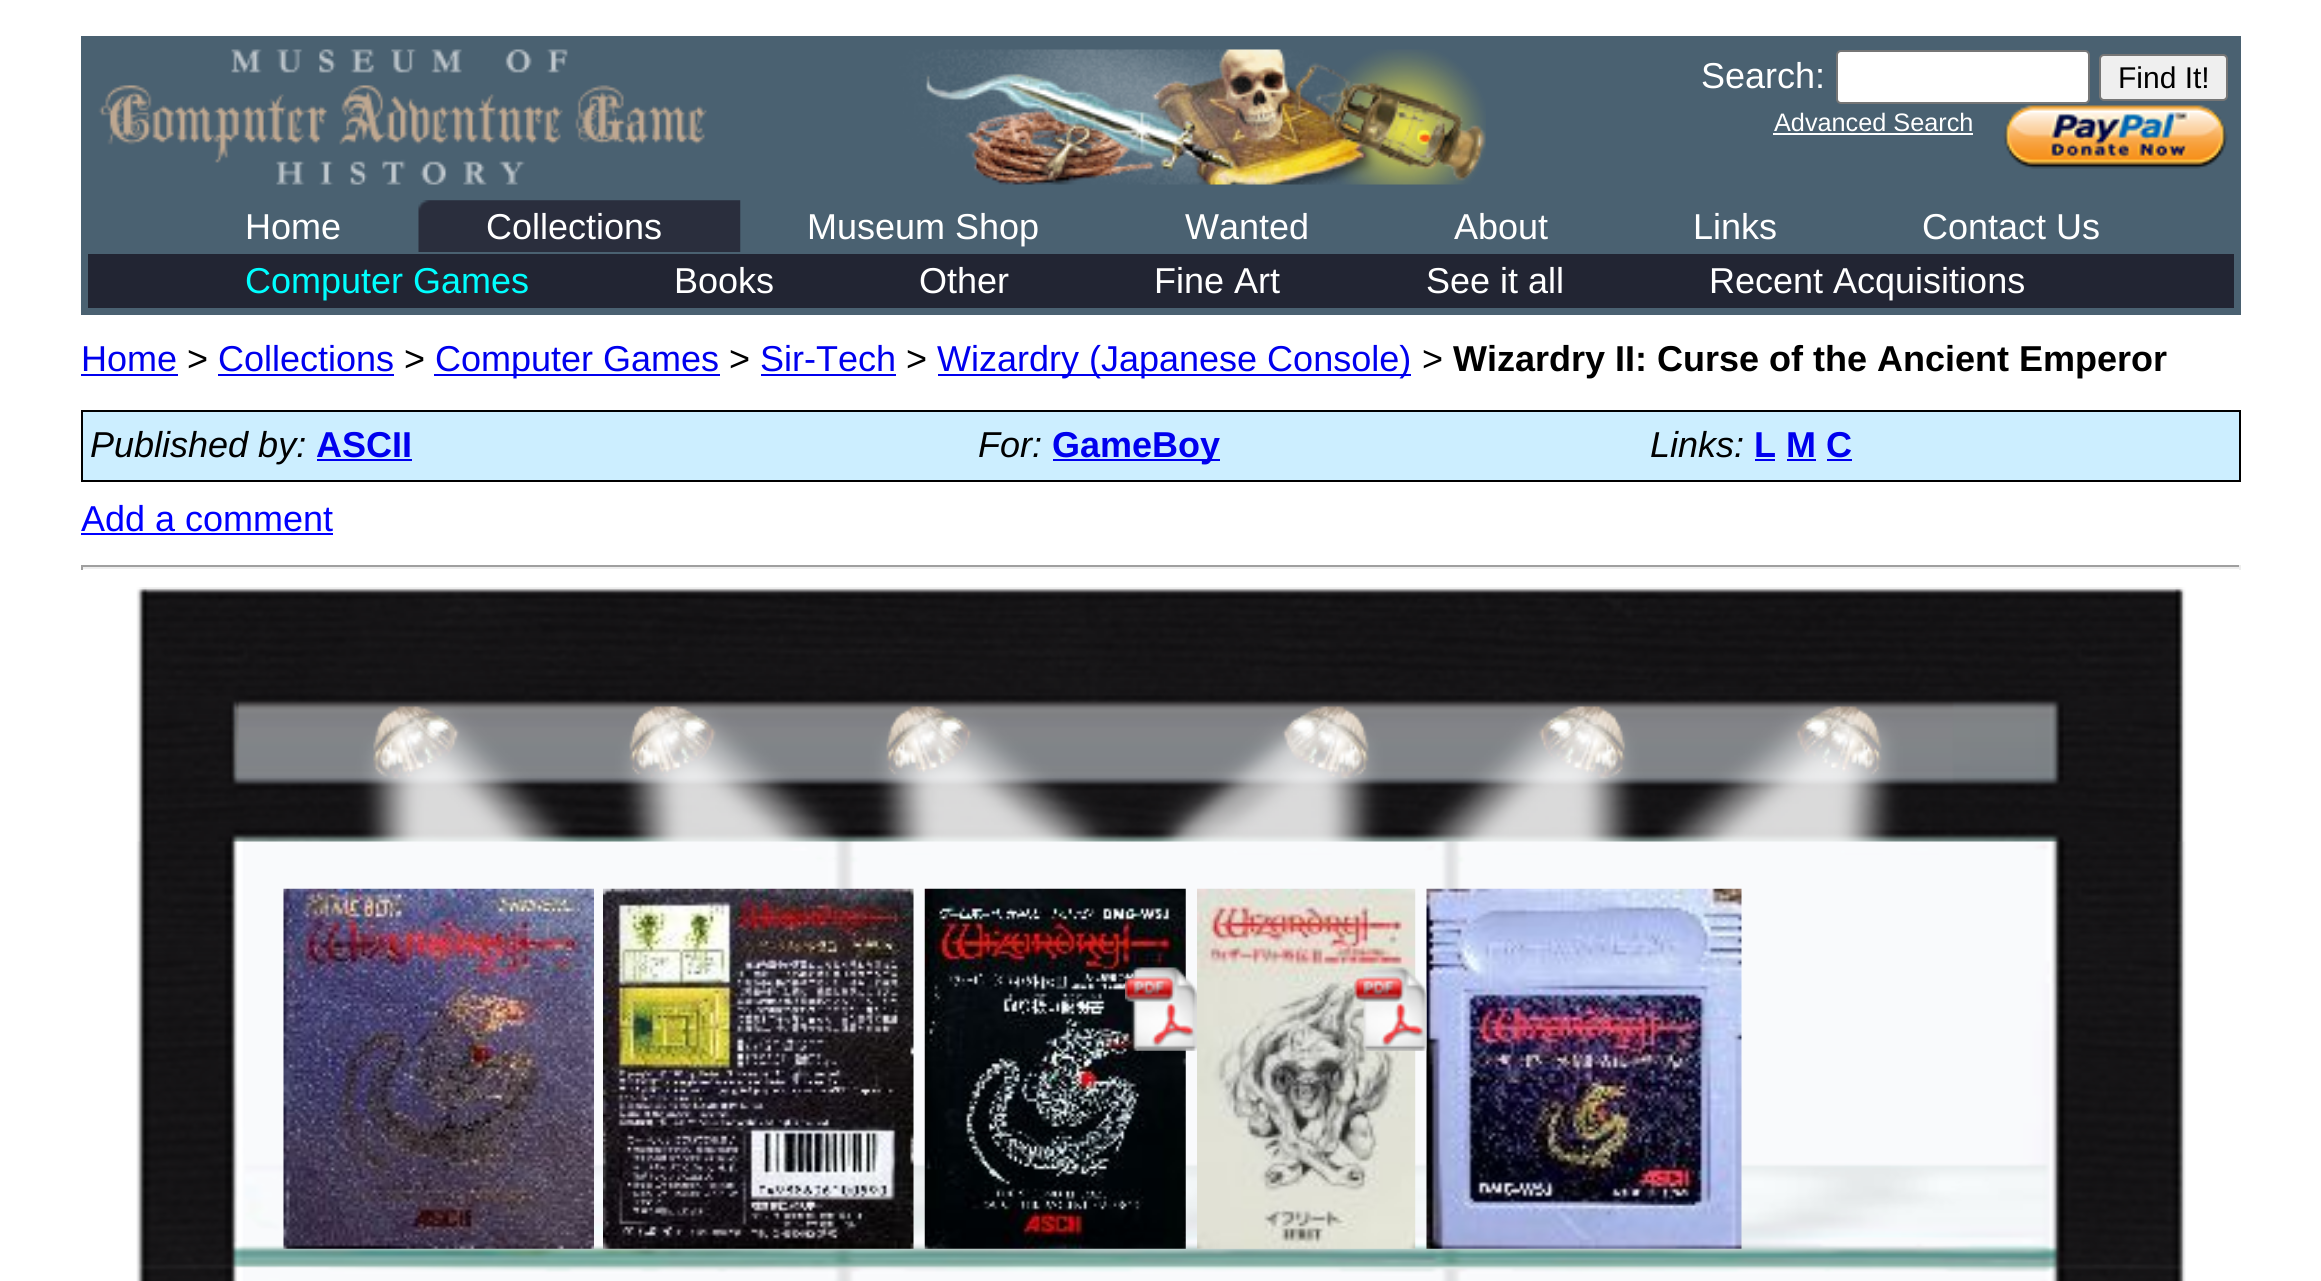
import math
import cairo

surface = cairo.ImageSurface(cairo.FORMAT_RGB24, 2321, 1281)
ctx = cairo.Context(surface)
options = cairo.FontOptions()
options.set_hint_metrics(cairo.HINT_METRICS_OFF)
options.set_hint_style(cairo.HINT_STYLE_NONE)
ctx.set_font_options(options)
ctx.set_miter_limit(4)


def set_color(code):
    ctx.set_source_rgb(*(v / 255 for v in bytes.fromhex(code[-6:])))


def draw_text(x, y, s, family, size, color, bold=False, italic=False):
    ctx.select_font_face(family, cairo.FONT_SLANT_ITALIC if italic else cairo.FONT_SLANT_NORMAL, cairo.FONT_WEIGHT_BOLD if bold else cairo.FONT_WEIGHT_NORMAL)
    ctx.set_font_size(size)
    set_color(color)
    ctx.move_to(x, y)
    ctx.show_text(s)


def fill_rect(x, y, w, h, color):
    set_color(color)
    ctx.rectangle(x, y, w, h)
    ctx.fill()


def rounded_rect(x, y, w, h, r):
    ctx.new_sub_path()
    for i, (u, v) in enumerate([(x + w - r, y + h - r), (x + r, y + h - r), (x + r, y + r), (x + w - r, y + r)]):
        ctx.arc(u, v, r, i * math.pi / 2, (i + 1) * math.pi / 2)
    ctx.close_path()


def draw_image(path, x, y, w, h):
    ctx.save()
    ctx.set_source_surface(cairo.ImageSurface.create_from_png(path), x, y)
    ctx.rectangle(x, y, w, h)
    ctx.fill()
    ctx.restore()


set_color("#ffffff")
ctx.paint()
fill_rect(81, 36, 2160, 279, "#4a6171")
draw_image("assets/img1.png", 98, 49, 1388, 136)
draw_text(1701, 88, "Search:", "Liberation Sans", 36, "#ffffff")
rounded_rect(1837, 51, 252, 52, 4)
ctx.fill_preserve()
set_color("#767676")
ctx.stroke()
set_color("#efefef")
rounded_rect(2100, 55, 127, 45, 4)
ctx.fill_preserve()
set_color("#767676")
ctx.stroke()
draw_text(2118, 88, "Find It!", "Liberation Sans", 30, "#000000")
draw_text(1774, 131, "Advanced Search", "Liberation Sans", 25.25, "#ffffff")
fill_rect(1773, 133, 200, 2, "#ffffff")
draw_image("assets/img2.png", 2003, 105, 225, 64)
draw_image("assets/img3.png", 418, 200, 323, 52)
draw_text(245, 239, "Home", "Liberation Sans", 36, "#ffffff")
draw_text(486, 239, "Collections", "Liberation Sans", 36, "#ffffff")
draw_text(807, 239, "Museum Shop", "Liberation Sans", 36, "#ffffff")
draw_text(1185, 239, "Wanted", "Liberation Sans", 36, "#ffffff")
draw_text(1454, 239, "About", "Liberation Sans", 36, "#ffffff")
draw_text(1693, 239, "Links", "Liberation Sans", 36, "#ffffff")
draw_text(1922, 239, "Contact Us", "Liberation Sans", 36, "#ffffff")
fill_rect(88, 254, 2146, 54, "#222533")
draw_text(245, 293, "Computer Games", "Liberation Sans", 36, "#00ffff")
draw_text(674, 293, "Books", "Liberation Sans", 36, "#ffffff")
draw_text(919, 293, "Other", "Liberation Sans", 36, "#ffffff")
draw_text(1154, 293, "Fine Art", "Liberation Sans", 36, "#ffffff")
draw_text(1426, 293, "See it all", "Liberation Sans", 36, "#ffffff")
draw_text(1709, 293, "Recent Acquisitions", "Liberation Sans", 36, "#ffffff")
draw_text(81, 371, "Home", "Liberation Sans", 36, "#0000ee")
fill_rect(81, 374, 97, 2, "#0000ee")
draw_text(187, 371, ">", "Liberation Sans", 36, "#000000")
draw_text(218, 371, "Collections", "Liberation Sans", 36, "#0000ee")
fill_rect(218, 374, 176, 2, "#0000ee")
draw_text(404, 371, ">", "Liberation Sans", 36, "#000000")
fill_rect(434, 374, 286, 2, "#0000ee")
draw_text(435, 371, "Computer Games", "Liberation Sans", 36, "#0000ee")
draw_text(729, 371, ">", "Liberation Sans", 36, "#000000")
draw_text(760, 371, "Sir-Tech", "Liberation Sans", 36, "#0000ee")
fill_rect(761, 374, 135, 2, "#0000ee")
draw_text(906, 371, ">", "Liberation Sans", 36, "#000000")
fill_rect(938, 374, 473, 2, "#0000ee")
draw_text(937, 371, "Wizardry (Japanese Console)", "Liberation Sans", 36, "#0000ee")
draw_text(1422, 371, ">", "Liberation Sans", 36, "#000000")
draw_text(1453, 371, "Wizardry II: Curse of the Ancient Emperor", "Liberation Sans", 36, "#000000", bold=True)
set_color("#cceeff")
ctx.rectangle(82, 411, 2158, 70)
ctx.fill_preserve()
set_color("#000000")
ctx.stroke()
draw_text(90, 457, "Published by:", "Liberation Sans", 36, "#000000", italic=True)
draw_text(316, 457, "ASCII", "Liberation Sans", 36, "#0000ee", bold=True)
fill_rect(317, 459, 95, 2, "#0000ee")
draw_text(978, 457, "For:", "Liberation Sans", 36, "#000000", italic=True)
fill_rect(1053, 459, 167, 2, "#0000ee")
draw_text(1052, 457, "GameBoy", "Liberation Sans", 36, "#0000ee", bold=True)
draw_text(1650, 457, "Links:", "Liberation Sans", 36, "#000000", italic=True)
draw_text(1754, 457, "L M C", "Liberation Sans", 36, "#0000ee", bold=True)
fill_rect(1755, 459, 20, 2, "#0000ee")
fill_rect(1787, 459, 29, 2, "#0000ee")
fill_rect(1827, 459, 25, 2, "#0000ee")
draw_text(81, 531, "Add a comment", "Liberation Sans", 36, "#0000ff")
fill_rect(81, 533, 252, 2, "#0000ff")
fill_rect(81, 565, 2160, 2, "#9f9f9f")
fill_rect(2239, 565, 2, 5, "#eeeeee")
fill_rect(81, 567, 2160, 2, "#eeeeee")
fill_rect(81, 565, 2, 5, "#9f9f9f")
draw_image("assets/img5.png", 136, 841, 2050, 440)
draw_image("assets/img4.png", 136, 587, 2050, 255)
draw_image("assets/img6.png", 283, 888, 311, 361)
draw_image("assets/img7.png", 603, 888, 311, 361)
draw_image("assets/img8.png", 924, 888, 262, 361)
draw_image("assets/img9.png", 1197, 888, 219, 361)
draw_image("assets/img10.png", 1426, 888, 316, 361)
draw_image("assets/img11.png", 1125, 967, 72, 84)
draw_image("assets/img12.png", 1354, 967, 73, 84)
surface.write_to_png("output.png")
